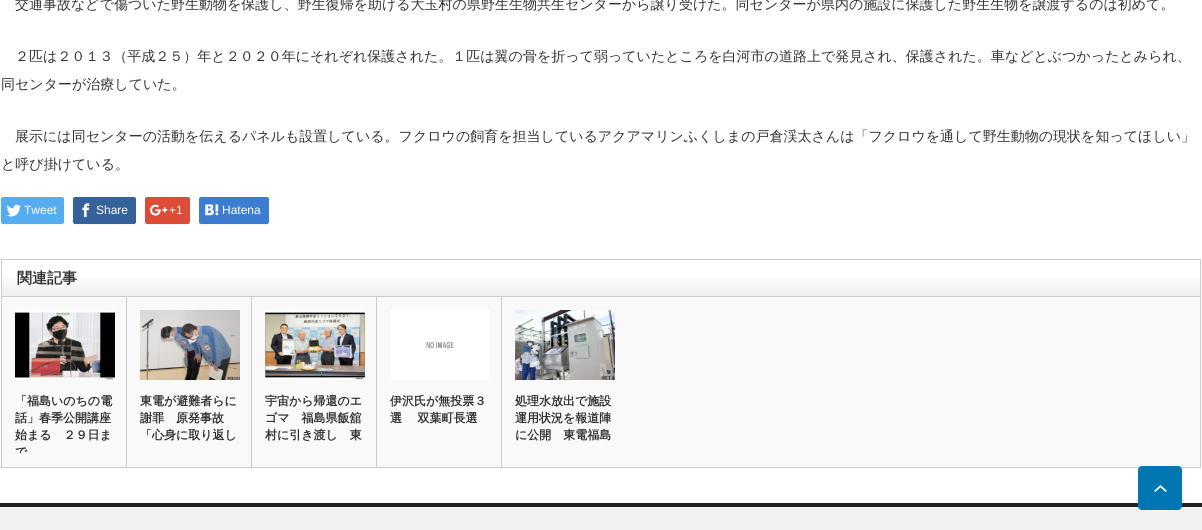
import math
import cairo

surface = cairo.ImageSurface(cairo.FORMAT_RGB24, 1202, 530)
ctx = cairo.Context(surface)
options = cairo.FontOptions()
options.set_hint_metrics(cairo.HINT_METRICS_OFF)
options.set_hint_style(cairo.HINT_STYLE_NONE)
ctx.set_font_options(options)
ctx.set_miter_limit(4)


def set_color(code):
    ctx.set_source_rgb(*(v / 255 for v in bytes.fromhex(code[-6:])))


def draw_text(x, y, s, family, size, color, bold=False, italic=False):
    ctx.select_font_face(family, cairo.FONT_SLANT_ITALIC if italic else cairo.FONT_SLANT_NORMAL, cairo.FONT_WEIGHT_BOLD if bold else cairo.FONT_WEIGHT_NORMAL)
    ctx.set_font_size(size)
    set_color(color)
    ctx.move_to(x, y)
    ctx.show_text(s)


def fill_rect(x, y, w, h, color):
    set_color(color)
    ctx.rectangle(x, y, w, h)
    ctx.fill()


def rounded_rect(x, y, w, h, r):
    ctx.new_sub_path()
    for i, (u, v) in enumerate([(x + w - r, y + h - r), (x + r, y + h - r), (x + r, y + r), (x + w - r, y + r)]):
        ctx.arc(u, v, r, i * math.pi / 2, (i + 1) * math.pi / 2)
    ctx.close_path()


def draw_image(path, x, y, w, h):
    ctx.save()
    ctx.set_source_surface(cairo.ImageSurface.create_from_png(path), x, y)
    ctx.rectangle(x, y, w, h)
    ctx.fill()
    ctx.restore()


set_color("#ffffff")
ctx.paint()
draw_text(15, 9, "交通事故などで傷ついた野生動物を保護し、野生復帰を助ける大玉村の県野生生物共生センターから譲り受けた。同センターが県内の施設に保護した野生生物を譲渡するのは初めて。", "WenQuanYi Zen Hei Medium", 14, "#333333")
draw_text(15, 61, "２匹は２０１３（平成２５）年と２０２０年にそれぞれ保護された。１匹は翼の骨を折って弱っていたところを白河市の道路上で発見され、保護された。車などとぶつかったとみられ、", "WenQuanYi Zen Hei Medium", 14, "#333333")
draw_text(1, 89, "同センターが治療していた。", "WenQuanYi Zen Hei Medium", 14, "#333333")
draw_text(15, 141, "展示には同センターの活動を伝えるパネルも設置している。フクロウの飼育を担当しているアクアマリンふくしまの戸倉渓太さんは「フクロウを通して野生動物の現状を知ってほしい」", "WenQuanYi Zen Hei Medium", 14, "#333333")
draw_text(1, 169, "と呼び掛けている。", "WenQuanYi Zen Hei Medium", 14, "#333333")
set_color("#f7f7f7")
ctx.new_path()
ctx.move_to(1, 222)
ctx.curve_to(1, 228, 9, 225, 13, 225)
ctx.line_to(52, 225)
ctx.curve_to(56, 225, 64, 228, 64, 222)
ctx.curve_to(64, 226, 56, 224, 52, 224)
ctx.line_to(2, 224)
ctx.close_path()
ctx.fill()
set_color("#55acee")
rounded_rect(1, 197, 63, 27, 2)
ctx.fill()
draw_image("assets/img1.png", 6, 204, 15, 13)
draw_text(24, 214, "Tweet", "Liberation Sans", 12, "#ffffff")
set_color("#f7f7f7")
ctx.new_path()
ctx.move_to(73, 222)
ctx.curve_to(73, 228, 81, 225, 85, 225)
ctx.line_to(124, 225)
ctx.curve_to(128, 225, 136, 228, 136, 222)
ctx.line_to(135, 224)
ctx.line_to(85, 224)
ctx.curve_to(81, 224, 73, 226, 73, 222)
ctx.close_path()
ctx.fill()
set_color("#35629a")
rounded_rect(73, 197, 63, 27, 2)
ctx.fill()
draw_image("assets/img2.png", 82, 203, 8, 14)
draw_text(96, 214, "Share", "Liberation Sans", 12, "#ffffff")
set_color("#f7f7f7")
ctx.new_path()
ctx.move_to(145, 222)
ctx.curve_to(145, 227, 150, 225, 154, 225)
ctx.line_to(181, 225)
ctx.curve_to(185, 225, 190, 227, 190, 222)
ctx.curve_to(190, 223, 189, 224, 188, 224)
ctx.line_to(147, 224)
ctx.curve_to(146, 224, 145, 223, 145, 222)
ctx.close_path()
ctx.fill()
set_color("#dd4b39")
rounded_rect(145, 197, 45, 27, 2)
ctx.fill()
draw_image("assets/img3.png", 150, 204, 18, 12)
draw_text(169, 214, "+1", "Liberation Sans", 12, "#ffffff")
set_color("#f7f7f7")
ctx.new_path()
ctx.move_to(199, 222)
ctx.curve_to(199, 228, 208, 225, 212, 225)
ctx.line_to(256, 225)
ctx.curve_to(260, 225, 269, 228, 269, 222)
ctx.curve_to(269, 223, 268, 224, 267, 224)
ctx.line_to(200, 224)
ctx.close_path()
ctx.fill()
set_color("#3c7dd1")
rounded_rect(199, 197, 70, 27, 2)
ctx.fill()
draw_image("assets/img4.png", 205, 204, 14, 12)
draw_text(222, 214, "Hatena", "Liberation Sans", 12, "#ffffff")
draw_image("assets/img5.png", 2, 278, 1198, 18)
ctx.rectangle(1.5, 259.5, 1199, 37)
set_color("#cccccc")
ctx.set_line_width(1)
ctx.stroke()
draw_text(17, 283, "関連記事", "WenQuanYi Zen Hei", 15, "#333333", bold=True)
fill_rect(2, 297, 1198, 170, "#f9f9f9")
fill_rect(1200, 297, 1, 171, "#cccccc")
fill_rect(1, 467, 1200, 1, "#cccccc")
fill_rect(1, 297, 1, 171, "#cccccc")
fill_rect(126, 297, 1, 170, "#cccccc")
draw_image("assets/img6.png", 15, 310, 100, 70)
draw_text(15, 405, "「福島いのちの電", "WenQuanYi Zen Hei", 12, "#333333", bold=True)
draw_text(15, 422, "話」春季公開講座", "WenQuanYi Zen Hei", 12, "#333333", bold=True)
draw_text(15, 439, "始まる　２９日ま", "WenQuanYi Zen Hei", 12, "#333333", bold=True)
ctx.save()
ctx.rectangle(15, 393, 98, 60)
ctx.clip()
draw_text(15, 456, "で", "WenQuanYi Zen Hei", 12, "#333333", bold=True)
ctx.restore()
fill_rect(251, 297, 1, 170, "#cccccc")
draw_image("assets/img7.png", 140, 310, 100, 70)
draw_text(140, 405, "東電が避難者らに", "WenQuanYi Zen Hei", 12, "#333333", bold=True)
draw_text(140, 422, "謝罪　原発事故", "WenQuanYi Zen Hei", 12, "#333333", bold=True)
draw_text(140, 439, "「心身に取り返し", "WenQuanYi Zen Hei", 12, "#333333", bold=True)
fill_rect(376, 297, 1, 170, "#cccccc")
draw_image("assets/img8.png", 265, 310, 100, 70)
draw_text(265, 405, "宇宙から帰還のエ", "WenQuanYi Zen Hei", 12, "#333333", bold=True)
draw_text(265, 422, "ゴマ　福島県飯舘", "WenQuanYi Zen Hei", 12, "#333333", bold=True)
draw_text(265, 439, "村に引き渡し　東", "WenQuanYi Zen Hei", 12, "#333333", bold=True)
fill_rect(501, 297, 1, 170, "#cccccc")
draw_image("assets/img9.png", 390, 310, 100, 70)
draw_text(390, 405, "伊沢氏が無投票３", "WenQuanYi Zen Hei", 12, "#333333", bold=True)
draw_text(390, 422, "選 　双葉町長選", "WenQuanYi Zen Hei", 12, "#333333", bold=True)
draw_image("assets/img10.png", 515, 310, 100, 70)
draw_text(515, 405, "処理水放出で施設", "WenQuanYi Zen Hei", 12, "#333333", bold=True)
draw_text(515, 422, "運用状況を報道陣", "WenQuanYi Zen Hei", 12, "#333333", bold=True)
draw_text(515, 439, "に公開　東電福島", "WenQuanYi Zen Hei", 12, "#333333", bold=True)
fill_rect(0, 507, 1202, 23, "#f2f2f2")
fill_rect(0, 503, 1202, 4, "#222222")
set_color("#0077b3")
rounded_rect(1138, 466, 44, 44, 4)
ctx.fill()
draw_image("assets/img11.png", 1154, 485, 13, 7)
surface.write_to_png("output.png")
